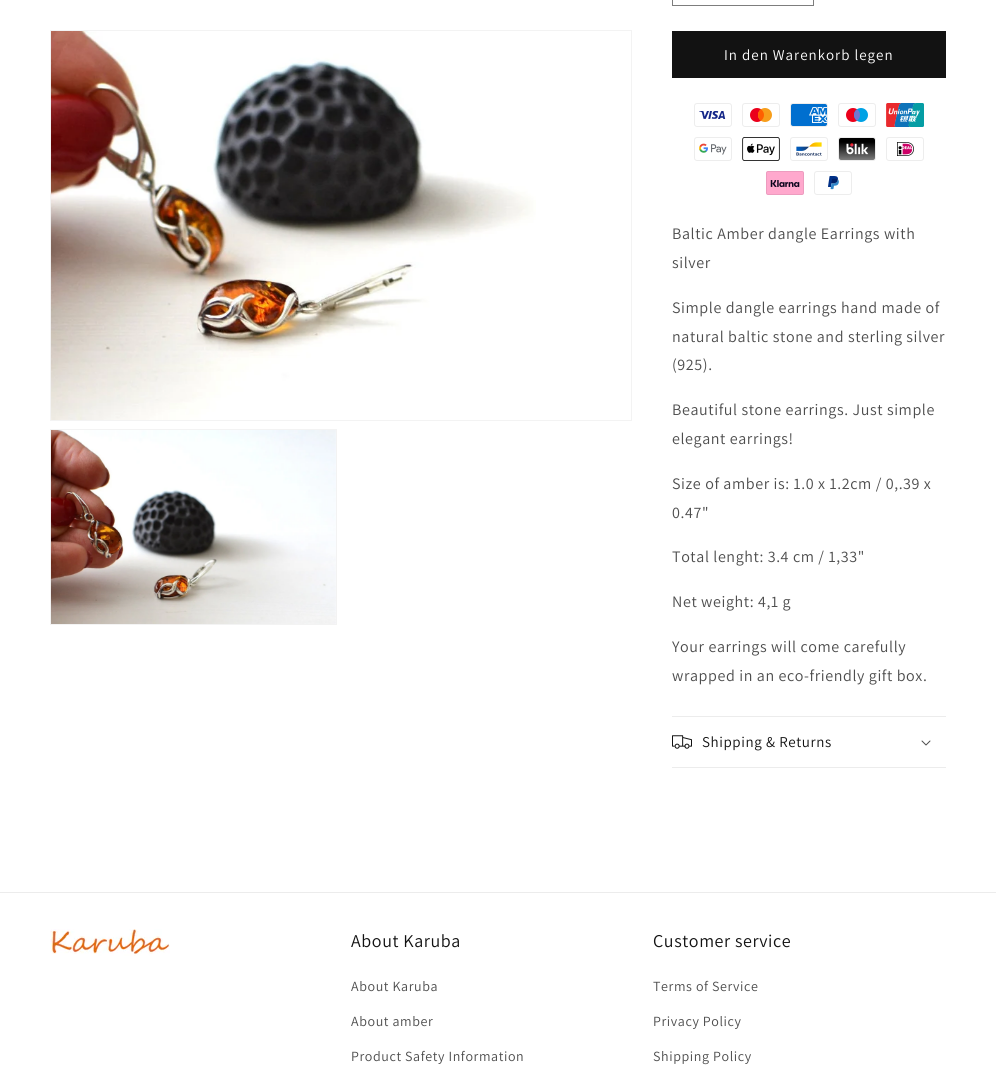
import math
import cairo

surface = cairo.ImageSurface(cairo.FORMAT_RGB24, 996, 1087)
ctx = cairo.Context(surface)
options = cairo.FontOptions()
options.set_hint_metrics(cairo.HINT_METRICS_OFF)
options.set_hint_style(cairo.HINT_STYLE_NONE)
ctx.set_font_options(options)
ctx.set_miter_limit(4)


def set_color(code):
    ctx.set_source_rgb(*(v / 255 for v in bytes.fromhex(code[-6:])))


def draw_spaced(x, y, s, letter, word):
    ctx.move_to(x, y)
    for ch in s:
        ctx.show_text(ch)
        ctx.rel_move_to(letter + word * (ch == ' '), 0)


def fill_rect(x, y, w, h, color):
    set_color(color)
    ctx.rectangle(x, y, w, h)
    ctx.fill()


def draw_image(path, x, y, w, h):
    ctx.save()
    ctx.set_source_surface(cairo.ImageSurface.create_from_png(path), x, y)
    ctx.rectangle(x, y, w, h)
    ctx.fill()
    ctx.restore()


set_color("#ffffff")
ctx.paint()
ctx.rectangle(50.5, 30.5, 581, 390)
set_color("#f3f3f3")
ctx.set_line_width(1)
ctx.stroke()
draw_image("assets/img1.png", 51, 31, 485, 389)
ctx.rectangle(50.5, 429.5, 286, 195)
ctx.stroke()
draw_image("assets/img2.png", 51, 430, 285, 194)
ctx.rectangle(672.5, -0.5, 141, 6)
set_color("#7d7d7d")
ctx.stroke()
fill_rect(672, 31, 274, 47, "#121212")
ctx.select_font_face("Assistant")
ctx.set_font_size(15)
set_color("#ffffff")
draw_spaced(724, 60, "In den Warenkorb legen", 1, 0)
draw_image("assets/img3.png", 694, 103, 38, 24)
draw_image("assets/img4.png", 742, 103, 38, 24)
draw_image("assets/img5.png", 790, 103, 38, 24)
draw_image("assets/img6.png", 838, 103, 38, 24)
draw_image("assets/img7.png", 886, 103, 38, 24)
draw_image("assets/img8.png", 694, 137, 38, 24)
draw_image("assets/img9.png", 742, 137, 38, 24)
draw_image("assets/img10.png", 790, 137, 38, 24)
draw_image("assets/img11.png", 838, 137, 38, 24)
draw_image("assets/img12.png", 886, 137, 38, 24)
draw_image("assets/img13.png", 766, 171, 38, 24)
draw_image("assets/img14.png", 814, 171, 38, 24)
ctx.set_font_size(16)
set_color("#4d4d4d")
draw_spaced(672, 239, "Baltic Amber dangle Earrings with", 0.6, 0)
draw_spaced(672, 268, "silver", 0.6, 0)
draw_spaced(672, 313, "Simple dangle earrings hand made of", 0.6, 0)
draw_spaced(672, 342, "natural baltic stone and sterling silver", 0.6, 0)
draw_spaced(672, 370, "(925).", 0.6, 0)
draw_spaced(672, 415, "Beautiful stone earrings. Just simple", 0.6, 0)
draw_spaced(672, 444, "elegant earrings!", 0.6, 0)
draw_spaced(672, 489, "Size of amber is: 1.0 x 1.2cm / 0,.39 x", 0.6, 0)
draw_spaced(672, 518, "0.47\"", 0.6, 0)
draw_spaced(672, 562, "Total lenght: 3.4 cm / 1,33\"", 0.6, 0)
draw_spaced(672, 607, "Net weight: 4,1 g", 0.6, 0)
draw_spaced(672, 652, "Your earrings will come carefully", 0.6, 0)
draw_spaced(672, 681, "wrapped in an eco-friendly gift box.", 0.6, 0)
fill_rect(672, 716, 274, 1, "#ececec")
fill_rect(672, 767, 274, 1, "#ececec")
draw_image("assets/img15.png", 672, 735, 20, 14)
ctx.set_font_size(15)
set_color("#121212")
draw_spaced(702, 747, "Shipping & Returns", 0.6, 0)
draw_image("assets/img16.png", 921, 740, 10, 6)
fill_rect(0, 892, 996, 1, "#ececec")
draw_image("assets/img17.png", 50, 929, 120, 27)
ctx.set_font_size(18)
set_color("#121212")
draw_spaced(351, 947, "About Karuba", 0.6, 0)
ctx.set_font_size(14)
set_color("#4d4d4d")
draw_spaced(351, 991, "About Karuba", 0.6, 0)
draw_spaced(351, 1026, "About amber", 0.6, 0)
draw_spaced(351, 1061, "Product Safety Information", 0.6, 0)
ctx.set_font_size(18)
set_color("#121212")
draw_spaced(653, 947, "Customer service", 0.6, 0)
ctx.set_font_size(14)
set_color("#4d4d4d")
draw_spaced(653, 991, "Terms of Service", 0.6, 0)
draw_spaced(653, 1026, "Privacy Policy", 0.6, 0)
draw_spaced(653, 1061, "Shipping Policy", 0.6, 0)
surface.write_to_png("output.png")
